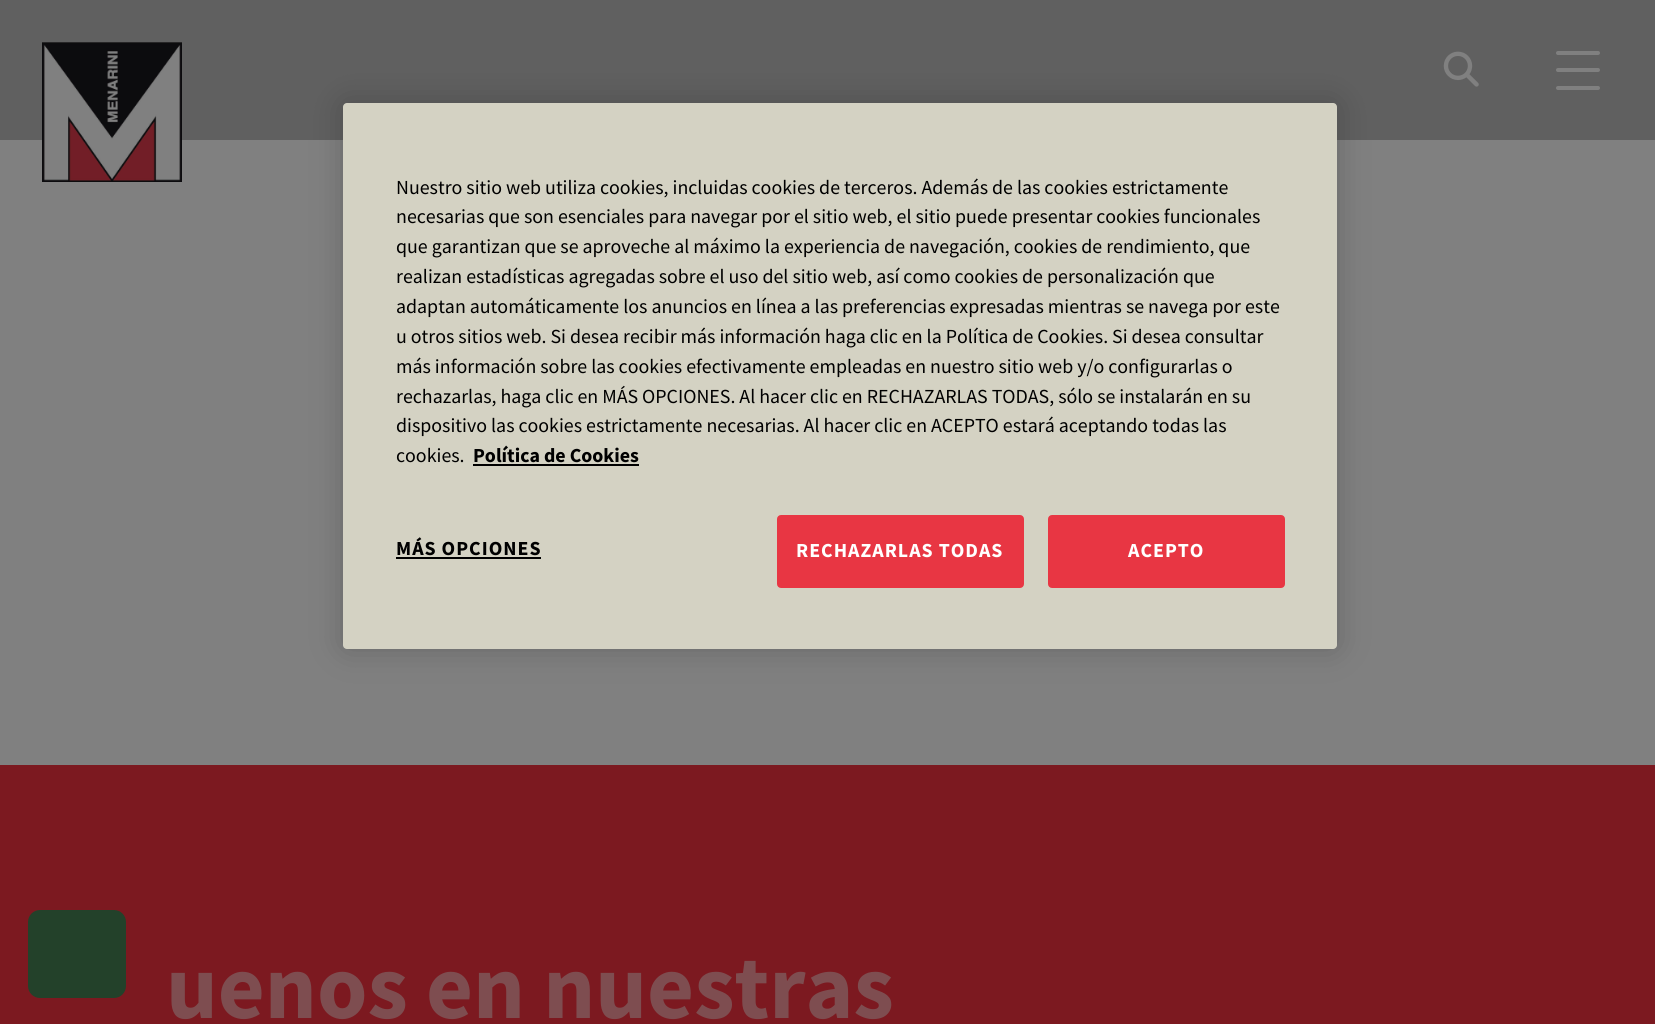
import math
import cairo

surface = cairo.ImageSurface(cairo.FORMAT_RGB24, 1655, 1024)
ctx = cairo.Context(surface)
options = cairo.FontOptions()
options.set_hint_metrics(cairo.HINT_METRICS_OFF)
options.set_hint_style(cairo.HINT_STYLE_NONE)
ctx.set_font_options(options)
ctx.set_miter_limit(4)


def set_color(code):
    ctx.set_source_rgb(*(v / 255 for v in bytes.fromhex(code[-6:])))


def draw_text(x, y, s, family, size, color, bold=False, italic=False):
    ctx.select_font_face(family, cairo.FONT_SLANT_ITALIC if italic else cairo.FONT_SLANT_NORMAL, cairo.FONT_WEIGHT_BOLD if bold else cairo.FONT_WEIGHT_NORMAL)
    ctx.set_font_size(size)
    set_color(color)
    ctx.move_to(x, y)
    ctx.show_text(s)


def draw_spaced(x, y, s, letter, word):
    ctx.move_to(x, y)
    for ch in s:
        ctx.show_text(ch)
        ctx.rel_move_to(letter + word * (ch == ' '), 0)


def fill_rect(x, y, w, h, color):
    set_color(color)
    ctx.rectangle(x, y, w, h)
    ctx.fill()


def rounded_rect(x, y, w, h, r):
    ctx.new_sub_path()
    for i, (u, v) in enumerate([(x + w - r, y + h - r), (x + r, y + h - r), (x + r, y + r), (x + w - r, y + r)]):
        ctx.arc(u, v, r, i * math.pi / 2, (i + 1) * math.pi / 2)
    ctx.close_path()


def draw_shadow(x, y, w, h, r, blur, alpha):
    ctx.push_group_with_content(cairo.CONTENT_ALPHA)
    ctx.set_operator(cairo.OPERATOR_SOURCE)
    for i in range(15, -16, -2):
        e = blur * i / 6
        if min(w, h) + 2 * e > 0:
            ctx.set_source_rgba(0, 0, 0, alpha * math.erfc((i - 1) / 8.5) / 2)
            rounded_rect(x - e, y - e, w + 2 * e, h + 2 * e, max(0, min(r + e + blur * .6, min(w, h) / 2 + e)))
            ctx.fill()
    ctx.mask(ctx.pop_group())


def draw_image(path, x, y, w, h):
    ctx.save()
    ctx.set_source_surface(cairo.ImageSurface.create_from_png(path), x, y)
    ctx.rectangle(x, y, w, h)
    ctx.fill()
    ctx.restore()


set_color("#808080")
ctx.paint()
fill_rect(0, 0, 1655, 140, "#606060")
draw_image("assets/img1.png", 42, 42, 140, 140)
draw_image("assets/img2.png", 1443, 51, 36, 36)
set_color("#808080")
rounded_rect(1556, 51, 44, 4, 2)
ctx.fill()
rounded_rect(1556, 68, 44, 4, 2)
ctx.fill()
rounded_rect(1556, 86, 44, 4, 2)
ctx.fill()
set_color("#000000")
draw_shadow(343, 103, 994, 546, 4, 16, 0.2)
set_color("#d4d2c3")
rounded_rect(343, 103, 994, 546, 4)
ctx.fill()
draw_text(396, 194, "Nuestro sitio web utiliza cookies, incluidas cookies de terceros. Además de las cookies estrictamente", "Source Sans Pro", 19.9, "#000000")
draw_text(396, 223, "necesarias que son esenciales para navegar por el sitio web, el sitio puede presentar cookies funcionales", "Source Sans Pro", 19.9, "#000000")
draw_text(396, 253, "que garantizan que se aproveche al máximo la experiencia de navegación, cookies de rendimiento, que", "Source Sans Pro", 19.9, "#000000")
draw_text(396, 283, "realizan estadísticas agregadas sobre el uso del sitio web, así como cookies de personalización que", "Source Sans Pro", 19.9, "#000000")
draw_text(396, 313, "adaptan automáticamente los anuncios en línea a las preferencias expresadas mientras se navega por este", "Source Sans Pro", 19.9, "#000000")
draw_text(396, 343, "u otros sitios web. Si desea recibir más información haga clic en la Política de Cookies. Si desea consultar", "Source Sans Pro", 19.9, "#000000")
draw_text(396, 373, "más información sobre las cookies efectivamente empleadas en nuestro sitio web y/o configurarlas o", "Source Sans Pro", 19.9, "#000000")
draw_text(396, 403, "rechazarlas, haga clic en MÁS OPCIONES. Al hacer clic en RECHAZARLAS TODAS, sólo se instalarán en su", "Source Sans Pro", 19.9, "#000000")
draw_text(396, 432, "dispositivo las cookies estrictamente necesarias. Al hacer clic en ACEPTO estará aceptando todas las", "Source Sans Pro", 19.9, "#000000")
draw_text(396, 462, "cookies.", "Source Sans Pro", 19.9, "#000000")
draw_text(473, 462, "Política de Cookies", "Source Sans Pro", 19.9, "#000000", bold=True)
fill_rect(473, 464, 166, 2, "#000000")
draw_spaced(396, 555, "MÁS OPCIONES", 1, 0)
fill_rect(396, 557, 145, 2, "#000000")
set_color("#e83643")
rounded_rect(778, 516, 245, 71, 3)
ctx.fill_preserve()
ctx.stroke()
set_color("#ffffff")
draw_spaced(796, 557, "RECHAZARLAS TODAS", 1, 0)
set_color("#e83643")
rounded_rect(1049, 516, 235, 71, 3)
ctx.fill_preserve()
ctx.stroke()
set_color("#ffffff")
draw_spaced(1128, 557, "ACEPTO", 1, 0)
fill_rect(0, 765, 1655, 259, "#7c1920")
set_color("#23412a")
rounded_rect(28, 910, 98, 88, 12)
ctx.fill()
draw_text(166, 1018, "uenos en nuestras", "Source Sans Pro", 91, "#7e4d50", bold=True)
surface.write_to_png("output.png")
